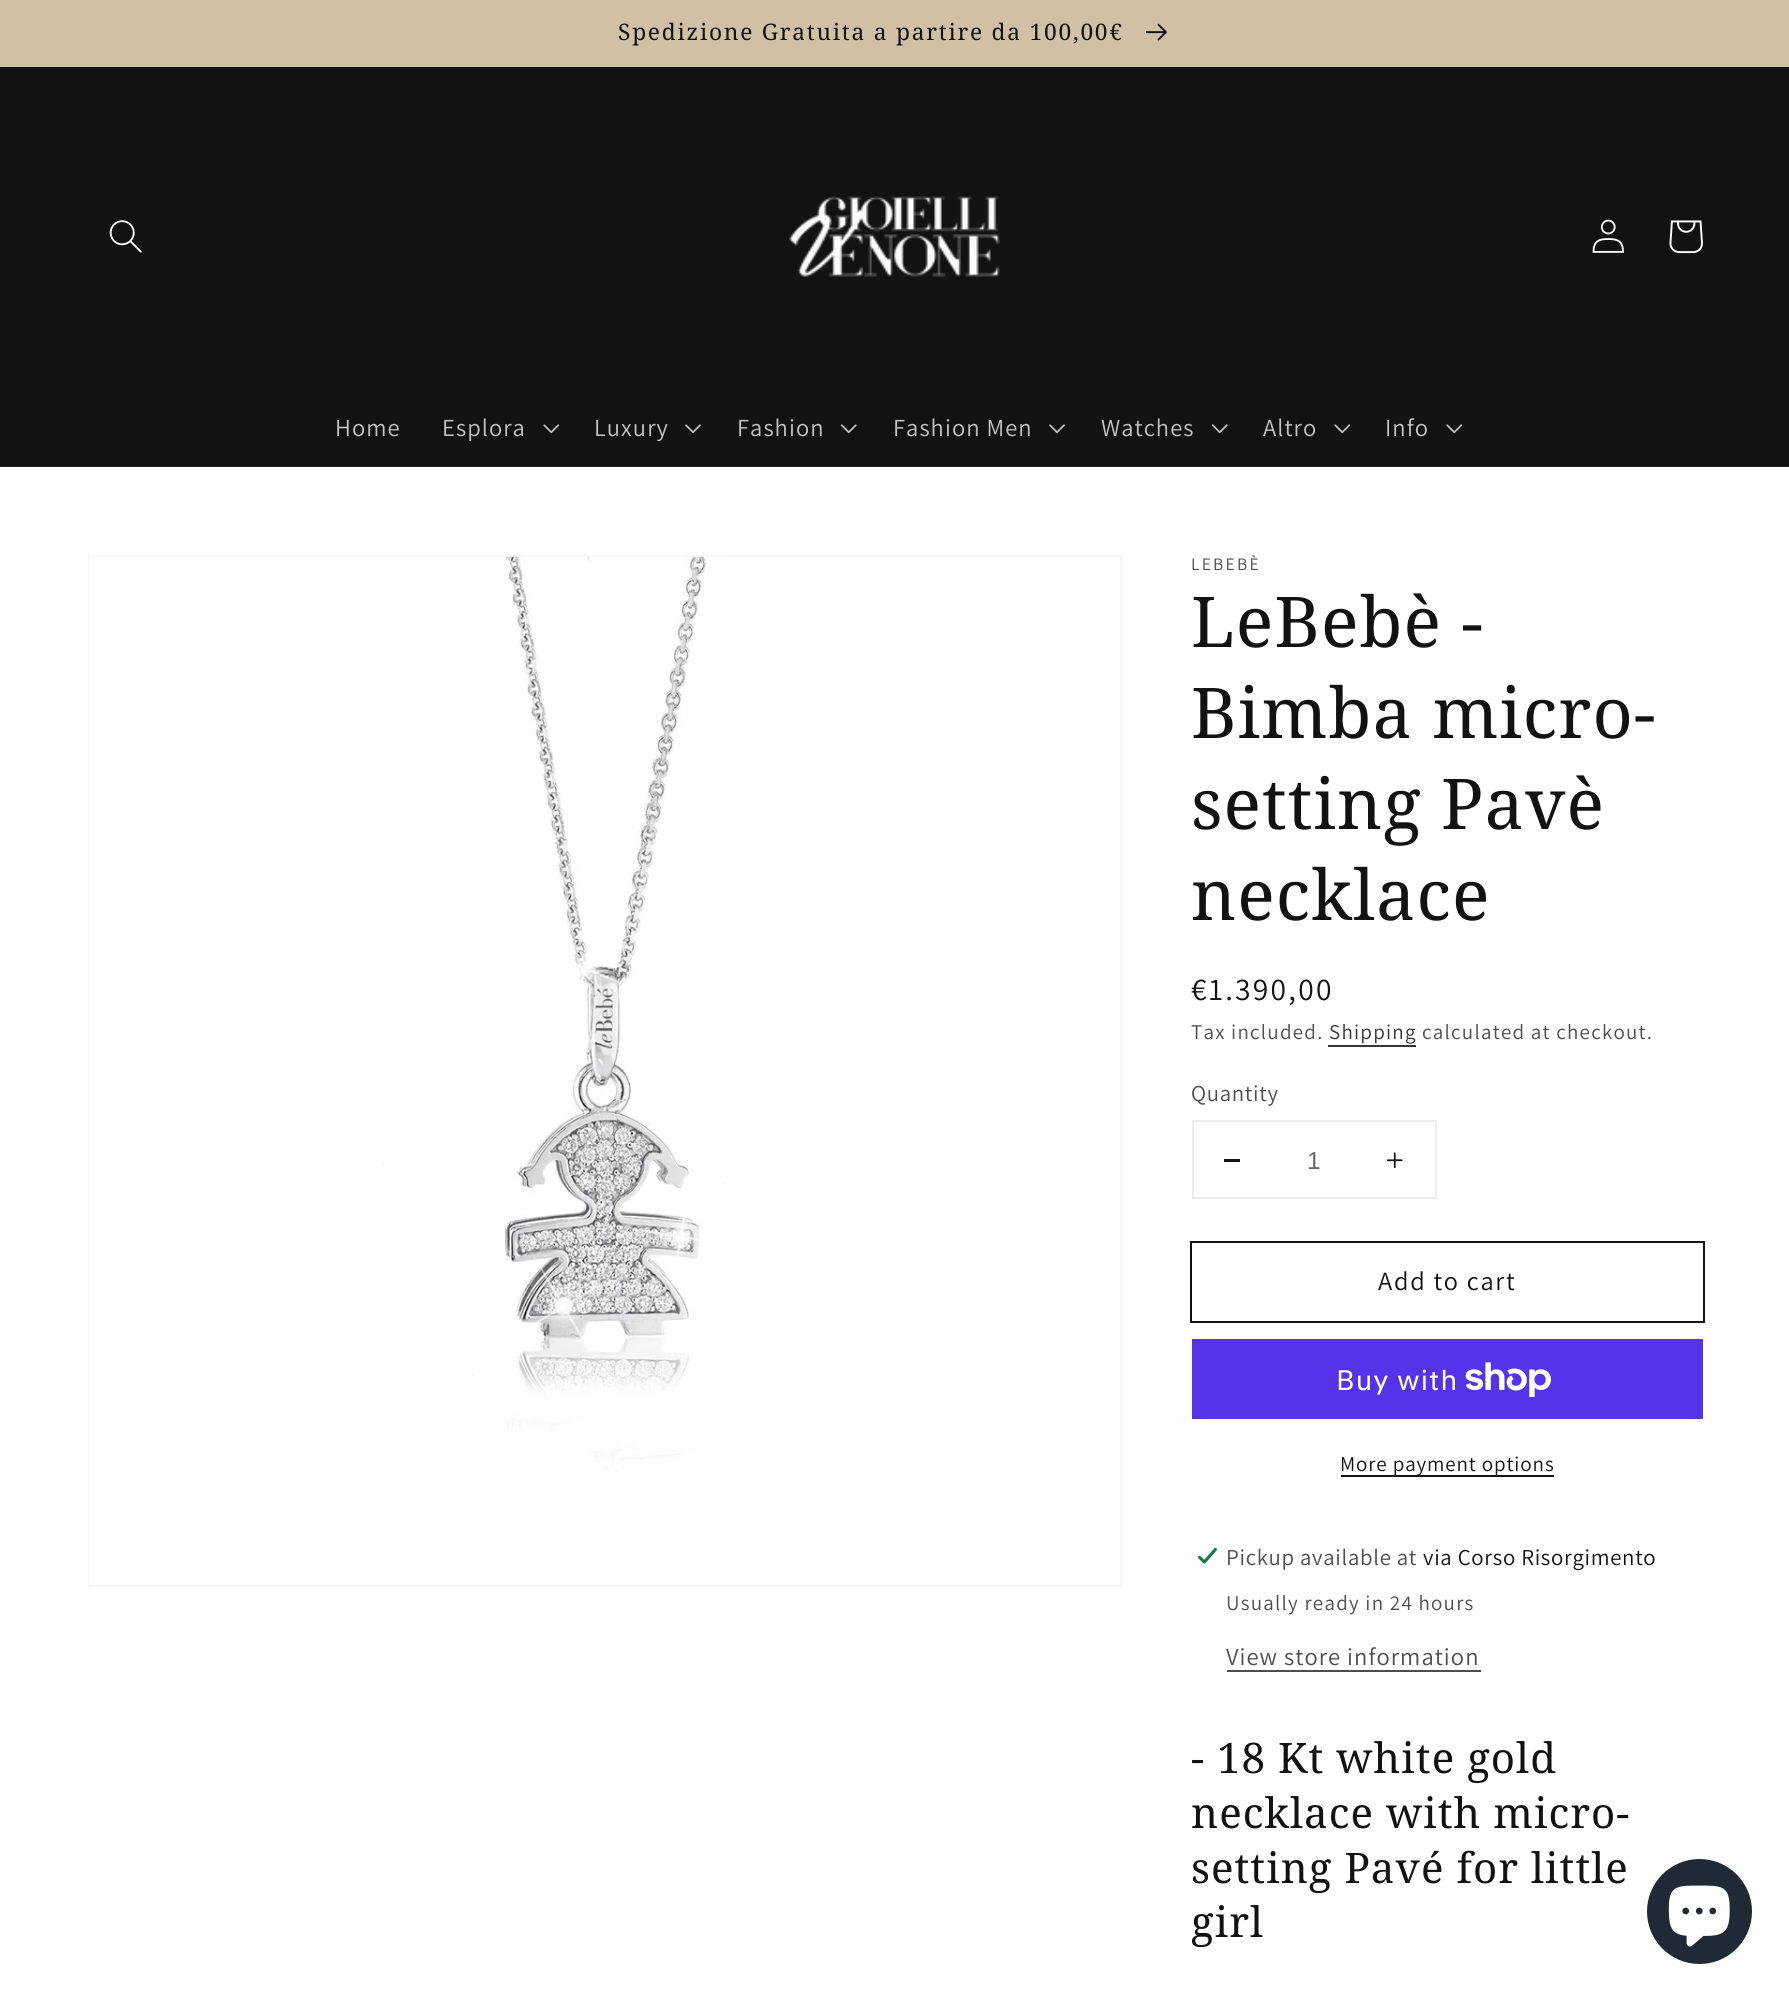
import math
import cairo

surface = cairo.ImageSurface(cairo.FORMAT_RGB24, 1789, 1999)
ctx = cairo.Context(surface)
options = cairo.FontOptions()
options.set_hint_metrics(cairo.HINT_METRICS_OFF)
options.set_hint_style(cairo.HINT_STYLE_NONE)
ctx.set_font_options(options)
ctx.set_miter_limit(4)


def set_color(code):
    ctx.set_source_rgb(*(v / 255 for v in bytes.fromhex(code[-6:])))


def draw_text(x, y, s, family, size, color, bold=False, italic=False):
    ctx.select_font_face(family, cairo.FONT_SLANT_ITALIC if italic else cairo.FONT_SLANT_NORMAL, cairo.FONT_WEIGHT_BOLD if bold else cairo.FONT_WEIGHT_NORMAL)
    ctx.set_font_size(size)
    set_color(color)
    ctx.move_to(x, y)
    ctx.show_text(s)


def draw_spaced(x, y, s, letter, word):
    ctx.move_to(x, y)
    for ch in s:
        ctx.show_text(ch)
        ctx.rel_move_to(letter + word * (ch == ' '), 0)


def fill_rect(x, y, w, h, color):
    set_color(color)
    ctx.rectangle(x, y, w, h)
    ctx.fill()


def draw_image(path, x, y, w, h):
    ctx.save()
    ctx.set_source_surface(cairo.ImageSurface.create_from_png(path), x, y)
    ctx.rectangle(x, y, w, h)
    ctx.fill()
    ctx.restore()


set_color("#ffffff")
ctx.paint()
fill_rect(0, 65, 1789, 2, "#cbbca2")
fill_rect(0, 0, 1789, 65, "#cfc0a6")
ctx.select_font_face("Noto Serif")
ctx.set_font_size(22.75)
set_color("#121212")
draw_spaced(618, 40, "Spedizione Gratuita a partire da 100,00€", 1.75, 0)
draw_image("assets/img1.png", 1146, 23, 21, 18)
fill_rect(0, 67, 1789, 399, "#121212")
fill_rect(0, 466, 1789, 1, "#252525")
draw_image("assets/img2.png", 109, 220, 33, 33)
draw_image("assets/img3.png", 789, 196, 211, 81)
draw_image("assets/img4.png", 1592, 219, 32, 34)
draw_image("assets/img5.png", 1669, 220, 34, 34)
ctx.select_font_face("Assistant")
ctx.set_font_size(24.5)
set_color("#c4c4c4")
draw_spaced(335, 436, "Home", 1.05, 0)
draw_spaced(442, 436, "Esplora", 1.05, 0)
draw_image("assets/img6.png", 543, 424, 17, 10)
draw_spaced(594, 436, "Luxury", 1.05, 0)
draw_image("assets/img7.png", 685, 424, 16, 9)
draw_spaced(737, 436, "Fashion", 1.05, 0)
draw_image("assets/img8.png", 840, 424, 17, 10)
draw_spaced(893, 436, "Fashion Men", 1.05, 0)
draw_image("assets/img7.png", 1049, 424, 16, 9)
draw_spaced(1101, 436, "Watches", 1.05, 0)
draw_image("assets/img8.png", 1211, 424, 17, 10)
draw_spaced(1263, 436, "Altro", 1.05, 0)
draw_image("assets/img6.png", 1334, 424, 17, 10)
draw_spaced(1385, 436, "Info", 1.05, 0)
draw_image("assets/img6.png", 1446, 424, 17, 10)
ctx.rectangle(89, 556, 1032, 1030)
set_color("#f6f6f6")
ctx.stroke()
draw_image("assets/img9.png", 89, 556, 637, 1029)
ctx.set_font_size(17.5)
set_color("#4d4d4d")
draw_spaced(1191, 570, "LEBEBÈ", 2.25, 0)
ctx.select_font_face("Noto Serif")
ctx.set_font_size(70)
set_color("#121212")
draw_spaced(1191, 647, "LeBebè -", 1.05, 0)
draw_spaced(1191, 738, "Bimba micro-", 1.05, 0)
draw_spaced(1191, 829, "setting Pavè", 1.05, 0)
draw_spaced(1191, 920, "necklace", 1.05, 0)
ctx.select_font_face("Assistant")
ctx.set_font_size(31.5)
draw_spaced(1191, 1000, "€1.390,00", 2.25, 0)
ctx.set_font_size(21)
set_color("#4d4d4d")
draw_spaced(1191, 1039, "Tax included.", 1.25, 0)
set_color("#363636")
draw_spaced(1329, 1039, "Shipping", 1.25, 0)
fill_rect(1328, 1045, 88, 2, "#363636")
set_color("#4d4d4d")
draw_spaced(1422, 1039, "calculated at checkout.", 1.25, 0)
ctx.set_font_size(22.75)
draw_spaced(1191, 1101, "Quantity", 0.7, 0)
ctx.rectangle(1193, 1121, 243, 77)
set_color("#ececec")
ctx.stroke()
fill_rect(1224, 1159, 16, 3, "#121212")
draw_text(1307, 1169, "1", "Liberation Sans", 24.5, "#686868")
draw_image("assets/img10.png", 1386, 1152, 17, 17)
ctx.rectangle(1191, 1242, 513, 80)
set_color("#121212")
ctx.stroke()
ctx.select_font_face("Assistant")
ctx.set_font_size(26.25)
draw_spaced(1378, 1290, "Add to cart", 1.75, 0)
fill_rect(1192, 1339, 511, 80, "#5433eb")
ctx.select_font_face("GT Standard")
ctx.set_font_size(28)
set_color("#ffffff")
draw_spaced(1336, 1390, "Buy with", 1.05, 0)
draw_image("assets/img11.png", 1465, 1362, 86, 35)
fill_rect(1341, 1475, 213, 2, "#121212")
ctx.select_font_face("Assistant")
ctx.set_font_size(21)
draw_spaced(1340, 1471, "More payment options", 0.9, 0)
draw_image("assets/img12.png", 1198, 1547, 19, 17)
ctx.set_font_size(22.75)
set_color("#4d4d4d")
draw_spaced(1226, 1565, "Pickup available at", 0.7, 0)
set_color("#121212")
draw_spaced(1423, 1565, "via Corso Risorgimento", 0.7, 0)
ctx.set_font_size(21)
set_color("#4d4d4d")
draw_spaced(1226, 1610, "Usually ready in 24 hours", 1.25, 0)
ctx.set_font_size(24.5)
draw_spaced(1226, 1665, "View store information", 1.05, 0)
fill_rect(1227, 1670, 254, 2, "#4d4d4d")
ctx.select_font_face("Noto Serif")
ctx.set_font_size(42)
set_color("#121212")
draw_spaced(1191, 1773, "- 18 Kt white gold", 1.05, 0)
draw_spaced(1191, 1828, "necklace with micro-", 1.05, 0)
draw_spaced(1191, 1883, "setting Pavé for little", 1.05, 0)
draw_spaced(1191, 1937, "girl", 1.05, 0)
set_color("#202a36")
ctx.new_path()
ctx.arc(1699.5, 1911.5, 52.5, 0, 2 * math.pi)
ctx.fill()
draw_image("assets/img13.png", 1668, 1885, 62, 62)
surface.write_to_png("output.png")
